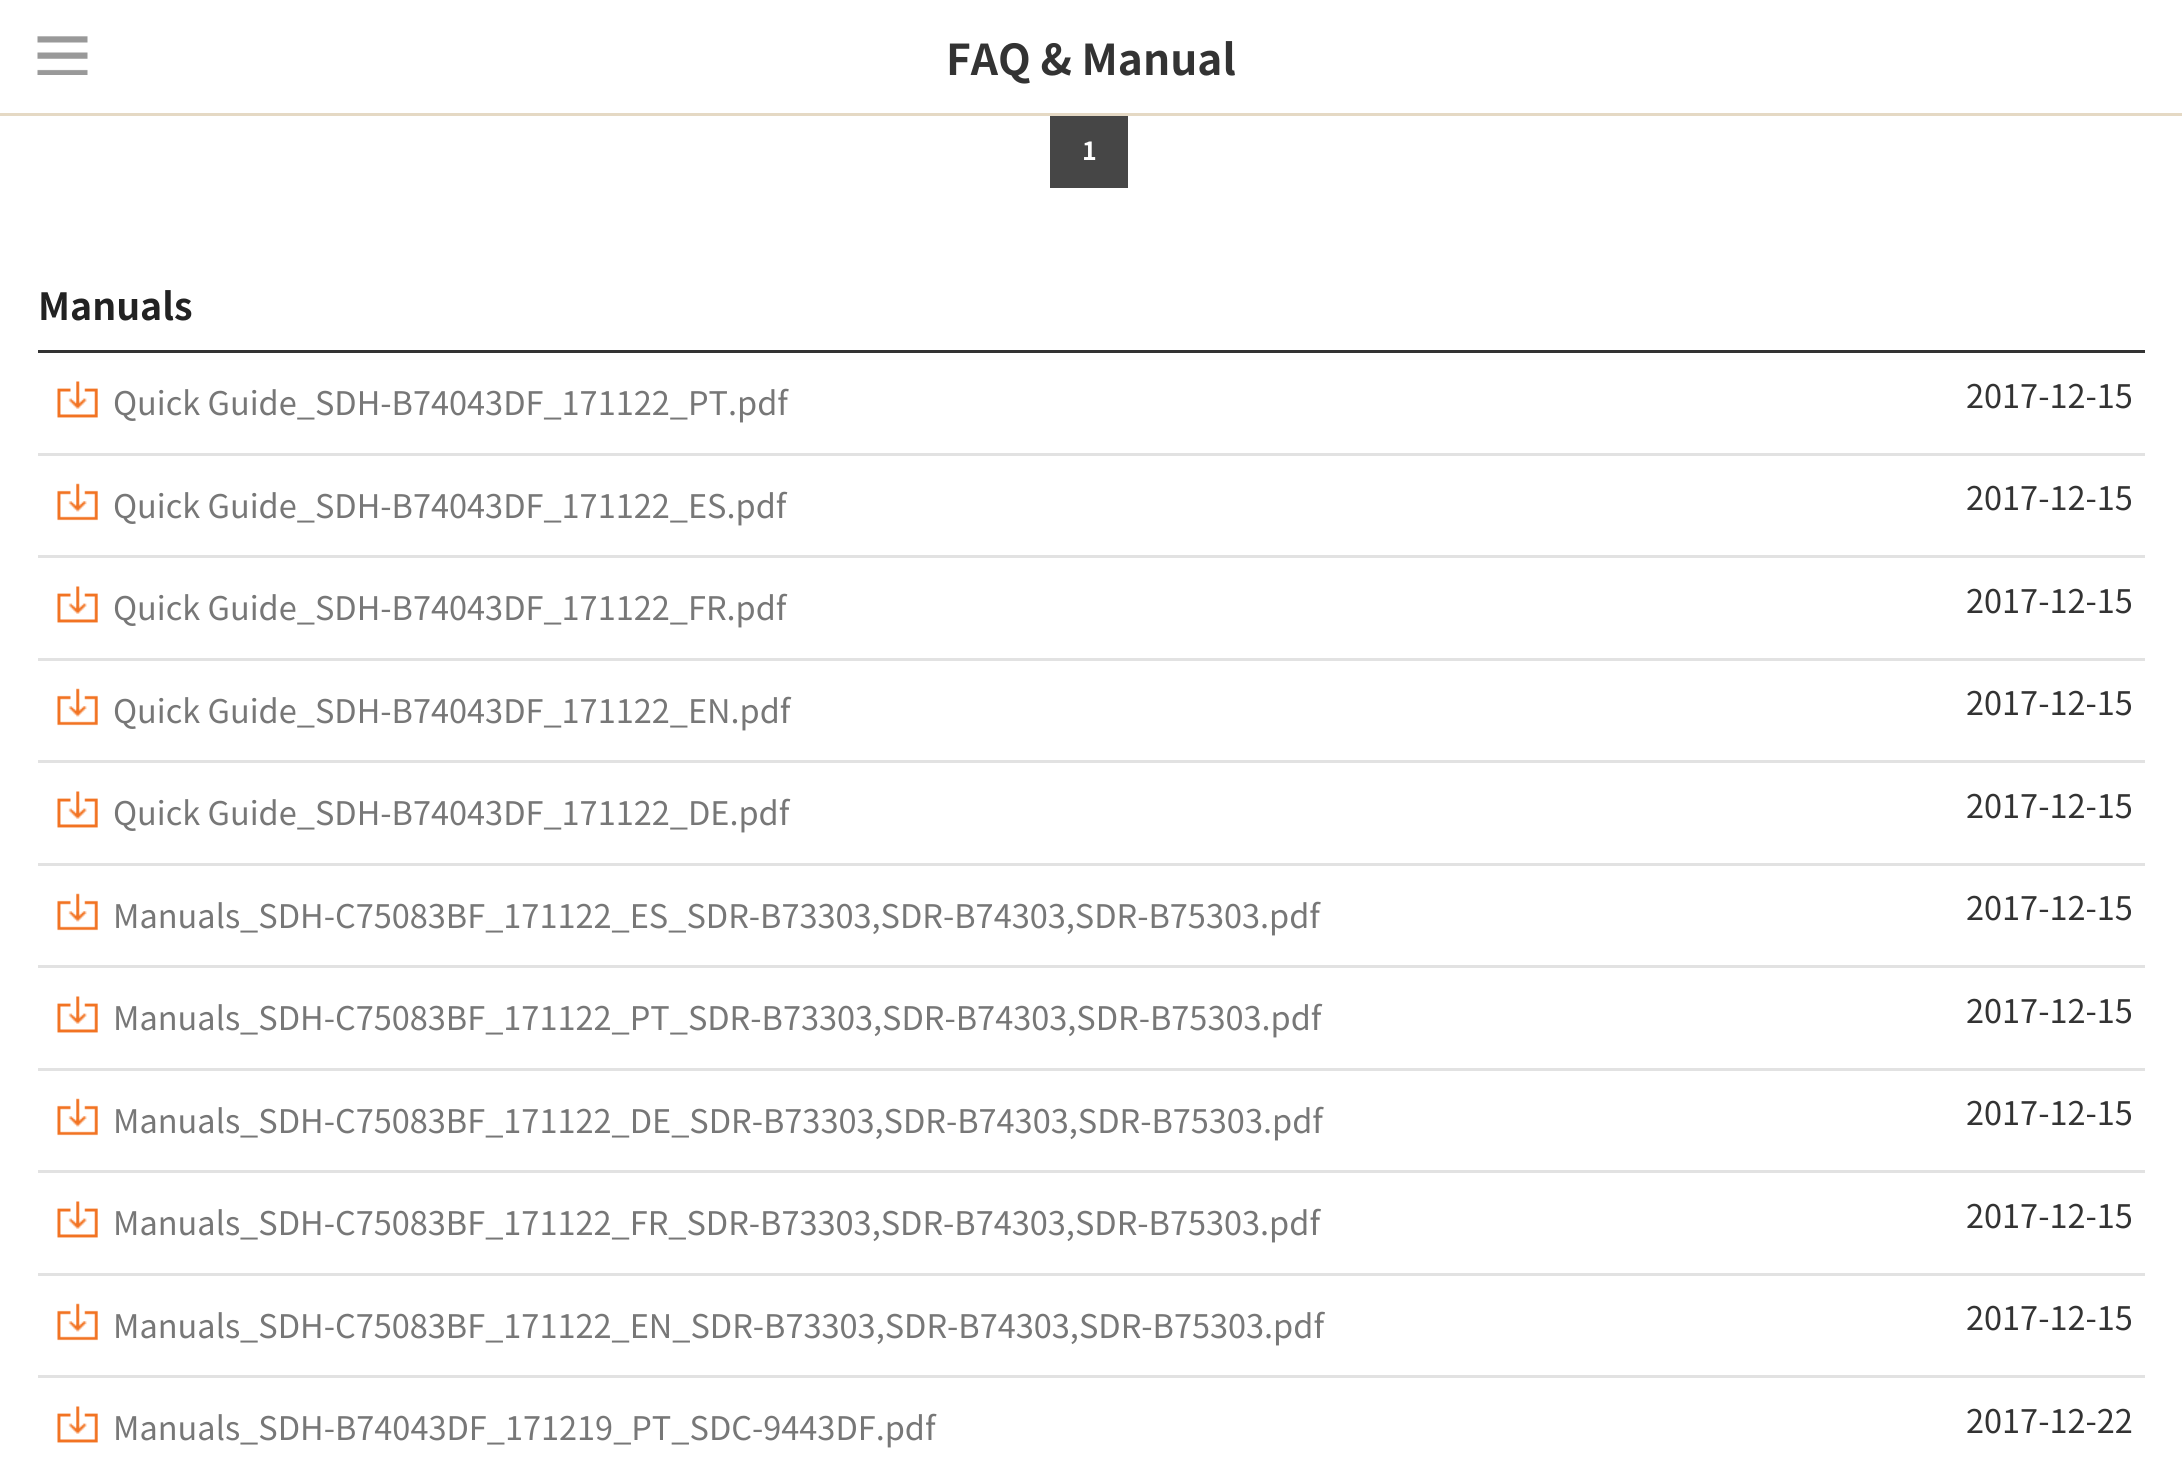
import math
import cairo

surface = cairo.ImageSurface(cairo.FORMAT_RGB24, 2182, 1477)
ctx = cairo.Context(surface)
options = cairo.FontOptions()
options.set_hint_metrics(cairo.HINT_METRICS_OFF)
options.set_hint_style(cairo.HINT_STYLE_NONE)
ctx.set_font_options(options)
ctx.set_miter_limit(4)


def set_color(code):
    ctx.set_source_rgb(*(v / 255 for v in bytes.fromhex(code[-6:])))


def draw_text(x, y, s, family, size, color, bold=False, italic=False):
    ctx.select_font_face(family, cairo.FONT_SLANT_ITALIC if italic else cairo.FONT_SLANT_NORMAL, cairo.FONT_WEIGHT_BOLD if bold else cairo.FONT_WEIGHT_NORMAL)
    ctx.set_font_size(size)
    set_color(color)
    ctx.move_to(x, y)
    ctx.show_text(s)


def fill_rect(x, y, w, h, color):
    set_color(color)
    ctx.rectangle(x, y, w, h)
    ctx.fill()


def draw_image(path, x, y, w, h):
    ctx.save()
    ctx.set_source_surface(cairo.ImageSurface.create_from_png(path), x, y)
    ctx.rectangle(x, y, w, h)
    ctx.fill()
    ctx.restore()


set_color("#ffffff")
ctx.paint()
fill_rect(0, 113, 2182, 3, "#e5d9c4")
draw_image("assets/img1.png", 37, 36, 51, 39)
draw_text(946, 75, "FAQ & Manual", "Noto Sans KR", 42.5, "#333333", bold=True)
fill_rect(1050, 116, 78, 72, "#464646")
draw_text(1082, 160, "1", "Noto Sans KR", 25, "#ffffff", bold=True)
draw_text(38, 320, "Manuals", "Noto Sans KR", 37.5, "#222222", bold=True)
fill_rect(38, 350, 2107, 3, "#333333")
fill_rect(38, 453, 2107, 3, "#e2e2e2")
draw_image("assets/img2.png", 57, 381, 41, 37)
draw_text(113, 415, "Quick Guide_SDH-B74043DF_171122_PT.pdf", "Noto Sans KR", 32.5, "#777777")
draw_text(1966, 408, "2017-12-15", "Noto Sans KR", 32.5, "#333333")
fill_rect(38, 555, 2107, 3, "#e2e2e2")
draw_image("assets/img3.png", 57, 483, 41, 38)
draw_text(113, 518, "Quick Guide_SDH-B74043DF_171122_ES.pdf", "Noto Sans KR", 32.5, "#777777")
draw_text(1966, 510, "2017-12-15", "Noto Sans KR", 32.5, "#333333")
fill_rect(38, 658, 2107, 3, "#e2e2e2")
draw_image("assets/img2.png", 57, 586, 41, 37)
draw_text(113, 620, "Quick Guide_SDH-B74043DF_171122_FR.pdf", "Noto Sans KR", 32.5, "#777777")
draw_text(1966, 613, "2017-12-15", "Noto Sans KR", 32.5, "#333333")
fill_rect(38, 760, 2107, 3, "#e2e2e2")
draw_image("assets/img3.png", 57, 688, 41, 38)
draw_text(113, 723, "Quick Guide_SDH-B74043DF_171122_EN.pdf", "Noto Sans KR", 32.5, "#777777")
draw_text(1966, 715, "2017-12-15", "Noto Sans KR", 32.5, "#333333")
fill_rect(38, 863, 2107, 3, "#e2e2e2")
draw_image("assets/img2.png", 57, 791, 41, 37)
draw_text(113, 825, "Quick Guide_SDH-B74043DF_171122_DE.pdf", "Noto Sans KR", 32.5, "#777777")
draw_text(1966, 818, "2017-12-15", "Noto Sans KR", 32.5, "#333333")
fill_rect(38, 965, 2107, 3, "#e2e2e2")
draw_image("assets/img3.png", 57, 893, 41, 38)
draw_text(113, 928, "Manuals_SDH-C75083BF_171122_ES_SDR-B73303,SDR-B74303,SDR-B75303.pdf", "Noto Sans KR", 32.5, "#777777")
draw_text(1966, 920, "2017-12-15", "Noto Sans KR", 32.5, "#333333")
fill_rect(38, 1068, 2107, 3, "#e2e2e2")
draw_image("assets/img2.png", 57, 996, 41, 37)
draw_text(113, 1030, "Manuals_SDH-C75083BF_171122_PT_SDR-B73303,SDR-B74303,SDR-B75303.pdf", "Noto Sans KR", 32.5, "#777777")
draw_text(1966, 1023, "2017-12-15", "Noto Sans KR", 32.5, "#333333")
fill_rect(38, 1170, 2107, 3, "#e2e2e2")
draw_image("assets/img3.png", 57, 1098, 41, 38)
draw_text(113, 1133, "Manuals_SDH-C75083BF_171122_DE_SDR-B73303,SDR-B74303,SDR-B75303.pdf", "Noto Sans KR", 32.5, "#777777")
draw_text(1966, 1125, "2017-12-15", "Noto Sans KR", 32.5, "#333333")
fill_rect(38, 1273, 2107, 3, "#e2e2e2")
draw_image("assets/img2.png", 57, 1201, 41, 37)
draw_text(113, 1235, "Manuals_SDH-C75083BF_171122_FR_SDR-B73303,SDR-B74303,SDR-B75303.pdf", "Noto Sans KR", 32.5, "#777777")
draw_text(1966, 1228, "2017-12-15", "Noto Sans KR", 32.5, "#333333")
fill_rect(38, 1375, 2107, 3, "#e2e2e2")
draw_image("assets/img3.png", 57, 1303, 41, 38)
draw_text(113, 1338, "Manuals_SDH-C75083BF_171122_EN_SDR-B73303,SDR-B74303,SDR-B75303.pdf", "Noto Sans KR", 32.5, "#777777")
draw_text(1966, 1330, "2017-12-15", "Noto Sans KR", 32.5, "#333333")
draw_image("assets/img2.png", 57, 1406, 41, 37)
draw_text(113, 1440, "Manuals_SDH-B74043DF_171219_PT_SDC-9443DF.pdf", "Noto Sans KR", 32.5, "#777777")
draw_text(1966, 1433, "2017-12-22", "Noto Sans KR", 32.5, "#333333")
surface.write_to_png("output.png")
